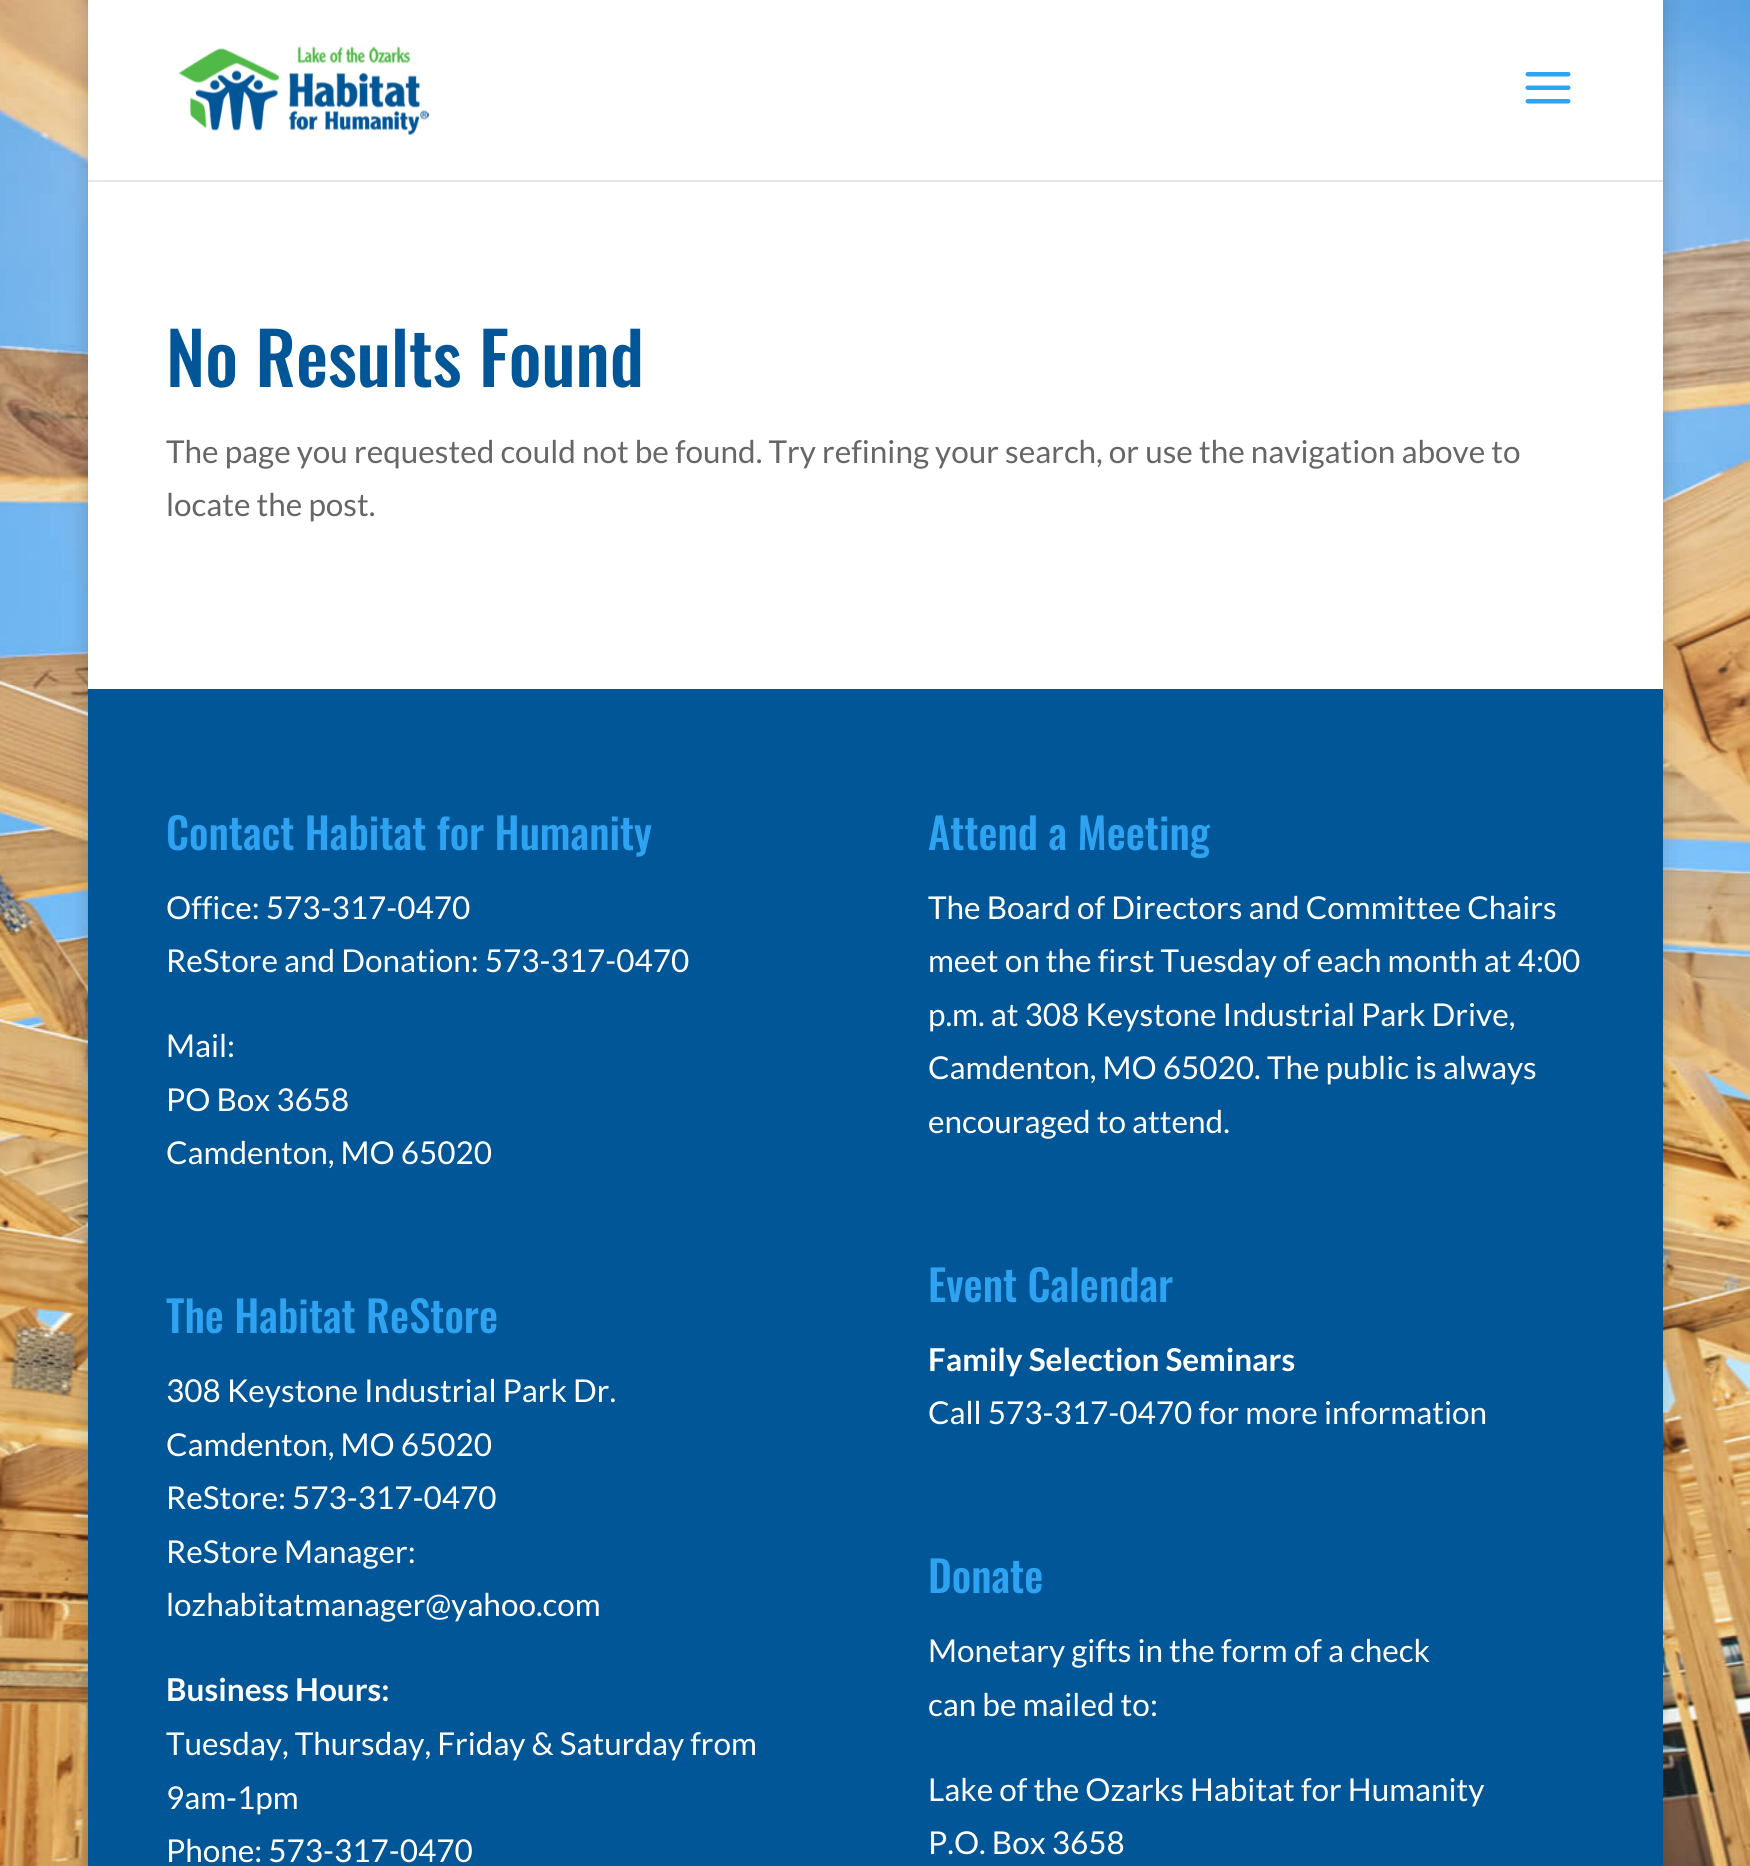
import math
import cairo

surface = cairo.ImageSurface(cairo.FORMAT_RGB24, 1750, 1866)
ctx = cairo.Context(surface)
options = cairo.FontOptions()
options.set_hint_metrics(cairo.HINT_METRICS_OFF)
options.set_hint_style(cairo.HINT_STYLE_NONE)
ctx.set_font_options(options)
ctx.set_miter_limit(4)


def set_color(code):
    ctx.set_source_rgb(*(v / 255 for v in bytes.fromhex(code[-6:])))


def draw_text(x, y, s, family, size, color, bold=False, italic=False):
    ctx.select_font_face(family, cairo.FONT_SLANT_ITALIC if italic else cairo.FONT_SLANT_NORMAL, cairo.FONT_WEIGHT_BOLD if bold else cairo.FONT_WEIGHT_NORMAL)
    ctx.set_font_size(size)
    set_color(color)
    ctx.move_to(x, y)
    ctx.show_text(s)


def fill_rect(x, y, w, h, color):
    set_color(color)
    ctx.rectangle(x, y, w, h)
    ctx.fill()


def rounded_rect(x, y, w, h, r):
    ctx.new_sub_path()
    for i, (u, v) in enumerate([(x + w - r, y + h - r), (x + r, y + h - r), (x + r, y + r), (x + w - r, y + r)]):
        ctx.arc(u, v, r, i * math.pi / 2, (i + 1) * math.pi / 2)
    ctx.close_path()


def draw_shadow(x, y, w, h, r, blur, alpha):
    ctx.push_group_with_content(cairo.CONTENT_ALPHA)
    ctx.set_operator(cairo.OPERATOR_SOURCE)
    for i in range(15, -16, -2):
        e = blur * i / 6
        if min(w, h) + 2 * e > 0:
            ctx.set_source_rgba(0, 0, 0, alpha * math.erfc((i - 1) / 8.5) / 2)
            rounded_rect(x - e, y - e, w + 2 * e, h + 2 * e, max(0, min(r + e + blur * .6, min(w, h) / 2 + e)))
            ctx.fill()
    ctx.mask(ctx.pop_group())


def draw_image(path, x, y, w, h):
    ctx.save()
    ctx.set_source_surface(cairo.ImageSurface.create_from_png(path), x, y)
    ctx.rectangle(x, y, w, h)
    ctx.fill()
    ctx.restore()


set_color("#ffffff")
ctx.paint()
draw_image("assets/img1.png", 0, 0, 1750, 1866)
set_color("#000000")
draw_shadow(88, 0, 1575, 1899, 0, 11, 0.2)
set_color("#e6e6e6")
ctx.new_path()
ctx.move_to(88, 180)
ctx.line_to(88, 182)
ctx.line_to(1663, 182)
ctx.line_to(1663, 2)
ctx.line_to(1663, 180)
ctx.close_path()
ctx.fill()
fill_rect(88, 0, 1575, 180, "#ffffff")
draw_image("assets/img2.png", 178, 46, 251, 89)
draw_image("assets/img3.png", 1525, 72, 46, 32)
fill_rect(88, 182, 1575, 507, "#ffffff")
draw_text(166, 387, "No Results Found", "Oswald Medium", 72, "#005696")
draw_text(166, 463, "The page you requested could not be found. Try refining your search, or use the navigation above to", "Lato", 31.5, "#666666")
draw_text(166, 516, "locate the post.", "Lato", 31.5, "#666666")
fill_rect(88, 689, 1575, 1177, "#005696")
draw_text(166, 850, "Contact Habitat for Humanity", "Oswald Medium", 42.75, "#2ea3f2")
draw_text(166, 919, "Office: 573-317-0470", "Lato", 31.5, "#ffffff")
draw_text(166, 972, "ReStore and Donation: 573-317-0470", "Lato", 31.5, "#ffffff")
draw_text(166, 1057, "Mail:", "Lato", 31.5, "#ffffff")
draw_text(166, 1111, "PO Box 3658", "Lato", 31.5, "#ffffff")
draw_text(166, 1164, "Camdenton, MO 65020", "Lato", 31.5, "#ffffff")
draw_text(166, 1333, "The Habitat ReStore", "Oswald Medium", 42.75, "#2ea3f2")
draw_text(166, 1402, "308 Keystone Industrial Park Dr.", "Lato", 31.5, "#ffffff")
draw_text(166, 1456, "Camdenton, MO 65020", "Lato", 31.5, "#ffffff")
draw_text(166, 1509, "ReStore: 573-317-0470", "Lato", 31.5, "#ffffff")
draw_text(166, 1563, "ReStore Manager:", "Lato", 31.5, "#ffffff")
draw_text(166, 1616, "lozhabitatmanager@yahoo.com", "Lato", 31.5, "#ffffff")
draw_text(166, 1701, "Business Hours:", "Lato", 31.5, "#ffffff", bold=True)
draw_text(166, 1755, "Tuesday, Thursday, Friday & Saturday from", "Lato", 31.5, "#ffffff")
draw_text(166, 1809, "9am-1pm", "Lato", 31.5, "#ffffff")
draw_text(166, 1862, "Phone: 573-317-0470", "Lato", 31.5, "#ffffff")
draw_text(928, 850, "Attend a Meeting", "Oswald Medium", 42.75, "#2ea3f2")
draw_text(928, 919, "The Board of Directors and Committee Chairs", "Lato", 31.5, "#ffffff")
draw_text(928, 972, "meet on the first Tuesday of each month at 4:00", "Lato", 31.5, "#ffffff")
draw_text(928, 1026, "p.m. at 308 Keystone Industrial Park Drive,", "Lato", 31.5, "#ffffff")
draw_text(928, 1079, "Camdenton, MO 65020. The public is always", "Lato", 31.5, "#ffffff")
draw_text(928, 1133, "encouraged to attend.", "Lato", 31.5, "#ffffff")
draw_text(928, 1302, "Event Calendar", "Oswald Medium", 42.75, "#2ea3f2")
draw_text(928, 1371, "Family Selection Seminars", "Lato", 31.5, "#ffffff", bold=True)
draw_text(928, 1424, "Call 573-317-0470 for more information", "Lato", 31.5, "#ffffff")
draw_text(928, 1593, "Donate", "Oswald Medium", 42.75, "#2ea3f2")
draw_text(928, 1662, "Monetary gifts in the form of a check", "Lato", 31.5, "#ffffff")
draw_text(928, 1716, "can be mailed to:", "Lato", 31.5, "#ffffff")
draw_text(928, 1801, "Lake of the Ozarks Habitat for Humanity", "Lato", 31.5, "#ffffff")
draw_text(928, 1854, "P.O. Box 3658", "Lato", 31.5, "#ffffff")
surface.write_to_png("output.png")
